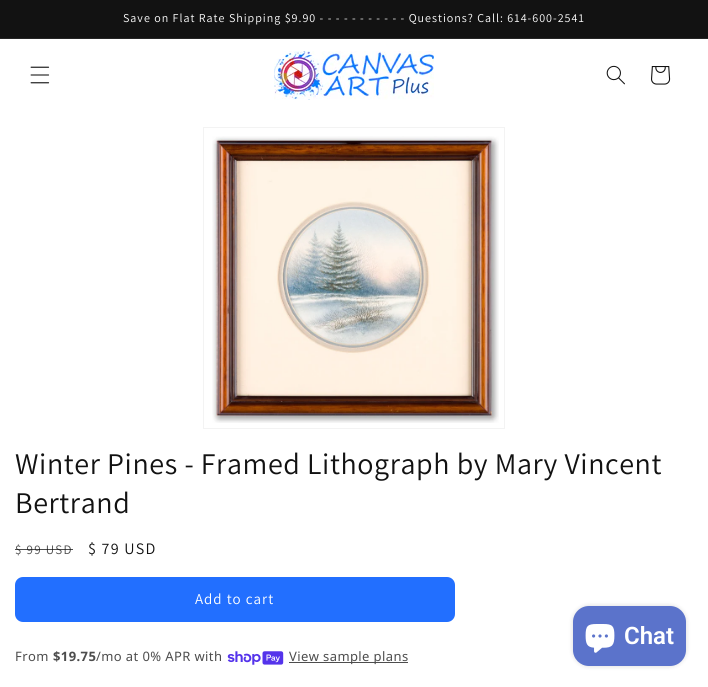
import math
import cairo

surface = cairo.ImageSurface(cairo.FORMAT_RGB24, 708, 687)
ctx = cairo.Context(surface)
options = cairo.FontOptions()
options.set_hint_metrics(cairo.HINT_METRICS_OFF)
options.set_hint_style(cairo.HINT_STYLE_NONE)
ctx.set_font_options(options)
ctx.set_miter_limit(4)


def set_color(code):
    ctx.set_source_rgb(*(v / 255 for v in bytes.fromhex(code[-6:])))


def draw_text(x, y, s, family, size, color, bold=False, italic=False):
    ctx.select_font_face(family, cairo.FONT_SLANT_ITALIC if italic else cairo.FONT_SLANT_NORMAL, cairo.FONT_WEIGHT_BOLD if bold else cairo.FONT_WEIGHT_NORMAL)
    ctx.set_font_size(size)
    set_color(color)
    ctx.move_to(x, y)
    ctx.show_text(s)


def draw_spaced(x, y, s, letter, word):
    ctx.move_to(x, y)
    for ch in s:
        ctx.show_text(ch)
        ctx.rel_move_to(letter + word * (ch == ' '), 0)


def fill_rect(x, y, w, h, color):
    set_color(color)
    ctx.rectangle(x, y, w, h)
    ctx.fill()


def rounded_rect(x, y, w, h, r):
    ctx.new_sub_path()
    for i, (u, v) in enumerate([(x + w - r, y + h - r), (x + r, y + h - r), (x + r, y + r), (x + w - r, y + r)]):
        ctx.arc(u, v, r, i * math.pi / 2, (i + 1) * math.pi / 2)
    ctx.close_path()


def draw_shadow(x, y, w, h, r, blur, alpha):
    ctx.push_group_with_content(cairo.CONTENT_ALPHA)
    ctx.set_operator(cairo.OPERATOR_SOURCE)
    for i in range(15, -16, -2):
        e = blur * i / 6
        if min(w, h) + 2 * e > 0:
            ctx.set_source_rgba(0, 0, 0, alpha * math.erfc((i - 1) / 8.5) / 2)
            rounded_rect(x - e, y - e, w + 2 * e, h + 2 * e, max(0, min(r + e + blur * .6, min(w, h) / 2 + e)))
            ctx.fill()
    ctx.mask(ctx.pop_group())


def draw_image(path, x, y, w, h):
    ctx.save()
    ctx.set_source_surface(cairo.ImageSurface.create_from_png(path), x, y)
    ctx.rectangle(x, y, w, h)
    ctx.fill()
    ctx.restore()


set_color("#ffffff")
ctx.paint()
fill_rect(0, 0, 708, 38, "#121212")
fill_rect(0, 38, 708, 1, "#252525")
ctx.select_font_face("Assistant")
ctx.set_font_size(12)
set_color("#ffffff")
draw_spaced(123, 22, "Save on Flat Rate Shipping $9.90 - - - - - - - - - - - Questions? Call: 614-600-2541", 1, 0)
draw_image("assets/img1.png", 30, 66, 20, 18)
draw_image("assets/img2.png", 274, 51, 160, 49)
draw_image("assets/img3.png", 606, 65, 19, 20)
draw_image("assets/img4.png", 651, 66, 20, 19)
ctx.rectangle(203.5, 127.5, 301, 301)
set_color("#f3f3f3")
ctx.set_line_width(1)
ctx.stroke()
draw_image("assets/img5.png", 212, 136, 287, 287)
ctx.set_font_size(30)
set_color("#121212")
draw_spaced(15, 474, "Winter Pines - Framed Lithograph by Mary Vincent", 0.6, 0)
draw_spaced(15, 513, "Bertrand", 0.6, 0)
ctx.set_font_size(13)
set_color("#4d4d4d")
draw_spaced(15, 554, "$ 99 USD", 1.25, 0)
ctx.set_source_rgba(0.071, 0.071, 0.071, 0.75)
ctx.rectangle(15, 549, 58, 1)
ctx.fill()
ctx.set_font_size(16)
set_color("#121212")
draw_spaced(88, 554, "$ 79 USD", 1.25, 0)
set_color("#226fff")
rounded_rect(15, 577, 440, 45, 8)
ctx.fill()
ctx.set_font_size(15)
set_color("#ffffff")
draw_spaced(195, 604, "Add to cart", 1, 0)
ctx.select_font_face("Noto Sans")
ctx.set_font_size(13)
set_color("#4d4d4d")
draw_spaced(15, 661, "From", 0.4, 0)
ctx.select_font_face("Noto Sans", cairo.FONT_SLANT_NORMAL, cairo.FONT_WEIGHT_BOLD)
draw_spaced(53, 661, "$19.75", 0.4, 0)
ctx.select_font_face("Noto Sans")
draw_spaced(96, 661, "/mo at 0% APR with", 0.4, 0)
draw_image("assets/img6.png", 227, 651, 57, 14)
fill_rect(289, 662, 119, 1, "#4d4d4d")
draw_spaced(289, 661, "View sample plans", 0.4, 0)
set_color("#000000")
draw_shadow(573, 606, 113, 60, 16, 2.5, 0.15)
set_color("#5b73cb")
rounded_rect(573, 606, 113, 60, 16)
ctx.fill()
draw_image("assets/img7.png", 585, 624, 30, 29)
draw_text(624, 644, "Chat", "Roboto SemiBold", 24, "#ffffff")
surface.write_to_png("output.png")
